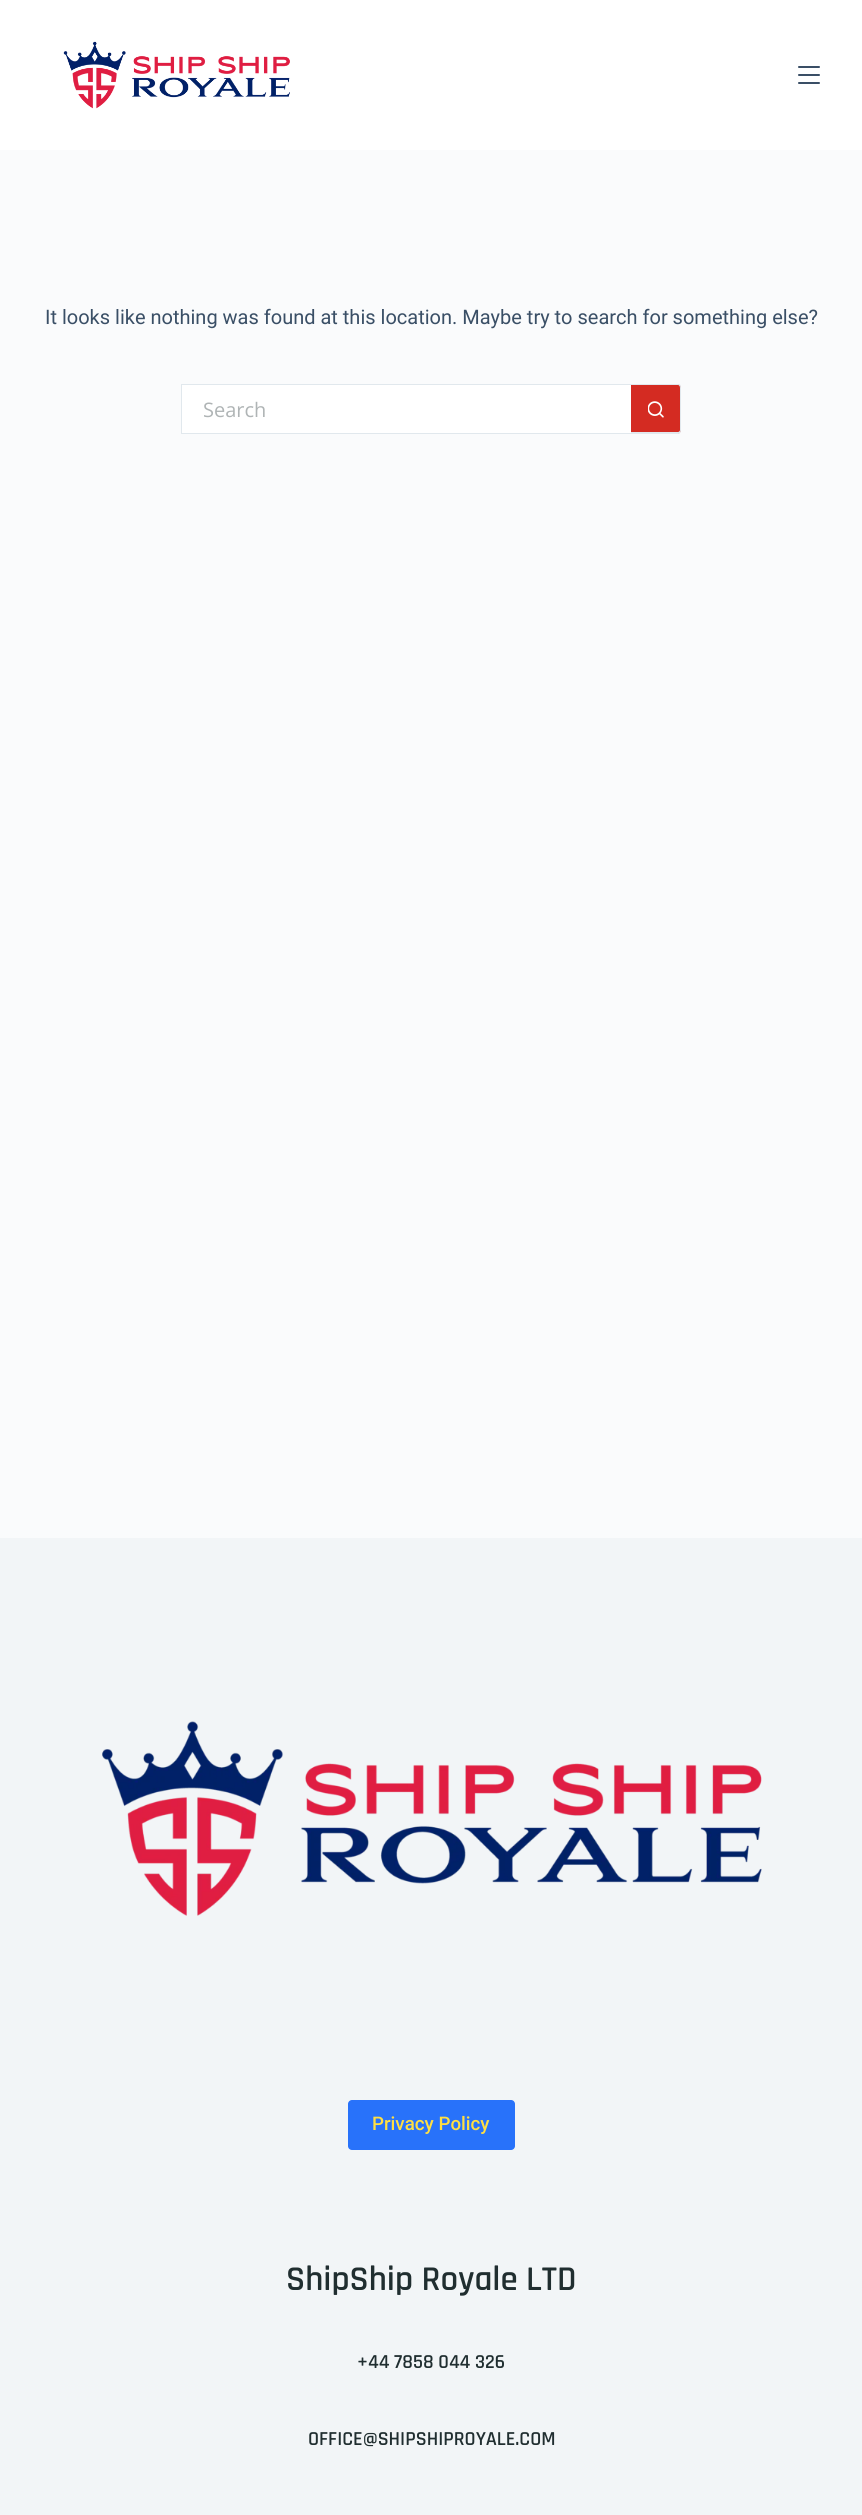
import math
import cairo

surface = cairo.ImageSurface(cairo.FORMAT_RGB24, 862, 2515)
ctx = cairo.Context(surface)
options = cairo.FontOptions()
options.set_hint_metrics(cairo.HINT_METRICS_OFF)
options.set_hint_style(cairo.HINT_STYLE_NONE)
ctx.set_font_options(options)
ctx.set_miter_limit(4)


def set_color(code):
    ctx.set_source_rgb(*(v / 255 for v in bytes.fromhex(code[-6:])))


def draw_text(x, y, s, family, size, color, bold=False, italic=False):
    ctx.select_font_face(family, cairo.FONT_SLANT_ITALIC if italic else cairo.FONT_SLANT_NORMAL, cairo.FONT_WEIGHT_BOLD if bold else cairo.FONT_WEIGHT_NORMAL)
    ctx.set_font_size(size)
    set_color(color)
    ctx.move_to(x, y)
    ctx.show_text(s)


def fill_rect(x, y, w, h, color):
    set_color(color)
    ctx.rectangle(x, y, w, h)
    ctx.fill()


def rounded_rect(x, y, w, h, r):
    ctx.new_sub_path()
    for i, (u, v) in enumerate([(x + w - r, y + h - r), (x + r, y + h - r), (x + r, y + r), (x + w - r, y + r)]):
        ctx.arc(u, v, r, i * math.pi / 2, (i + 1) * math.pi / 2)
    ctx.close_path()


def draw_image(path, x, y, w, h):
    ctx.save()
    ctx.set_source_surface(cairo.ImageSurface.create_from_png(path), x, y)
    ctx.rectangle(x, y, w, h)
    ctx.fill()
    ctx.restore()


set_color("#fafbfc")
ctx.paint()
fill_rect(0, 0, 862, 150, "#ffffff")
draw_image("assets/img1.png", 63, 41, 227, 68)
set_color("#3a4f66")
rounded_rect(798, 66, 22, 2, 1)
ctx.fill()
rounded_rect(798, 74, 22, 2, 1)
ctx.fill()
rounded_rect(798, 82, 22, 2, 1)
ctx.fill()
draw_text(45, 324, "It looks like nothing was found at this location. Maybe try to search for something else?", "Roboto", 20, "#3a4f66")
fill_rect(182, 385, 449, 48, "#ffffff")
fill_rect(181, 384, 450, 1, "#e1e8ed")
fill_rect(181, 433, 450, 1, "#e1e8ed")
fill_rect(181, 384, 1, 50, "#e1e8ed")
draw_text(203, 417, "Search", "Open Sans", 20, "#afb4b5")
set_color("#d42b22")
ctx.new_path()
ctx.move_to(631, 384)
ctx.line_to(677, 384)
ctx.curve_to(679, 384, 681, 386, 681, 388)
ctx.line_to(681, 430)
ctx.curve_to(681, 432, 679, 434, 677, 434)
ctx.line_to(631, 434)
ctx.close_path()
ctx.fill()
set_color("#e1e8ed")
ctx.set_fill_rule(cairo.FILL_RULE_EVEN_ODD)
ctx.new_path()
ctx.move_to(631, 384)
ctx.line_to(678, 384)
ctx.curve_to(680, 384, 681, 385, 681, 388)
ctx.line_to(681, 430)
ctx.curve_to(681, 432, 680, 434, 678, 434)
ctx.line_to(631, 434)
ctx.close_path()
ctx.move_to(631, 385)
ctx.line_to(678, 385)
ctx.curve_to(679, 385, 680, 386, 680, 388)
ctx.line_to(680, 430)
ctx.curve_to(680, 431, 679, 432, 678, 432)
ctx.line_to(631, 432)
ctx.close_path()
ctx.fill()
draw_image("assets/img2.png", 648, 401, 16, 17)
fill_rect(0, 1538, 862, 977, "#f2f5f7")
draw_image("assets/img3.png", 102, 1721, 660, 195)
set_color("#2872fa")
rounded_rect(348, 2100, 167, 50, 4)
ctx.fill()
draw_text(372, 2130, "Privacy Policy", "Roboto Medium", 18.75, "#ffdf42")
draw_text(286, 2290, "ShipShip Royale LTD", "Rajdhani SemiBold", 35, "#202e30")
draw_text(357, 2368, "+44 7858 044 326", "Rajdhani SemiBold", 20, "#202e30")
draw_text(308, 2445, "OFFICE@SHIPSHIPROYALE.COM", "Rajdhani SemiBold", 20, "#202e30")
surface.write_to_png("output.png")
